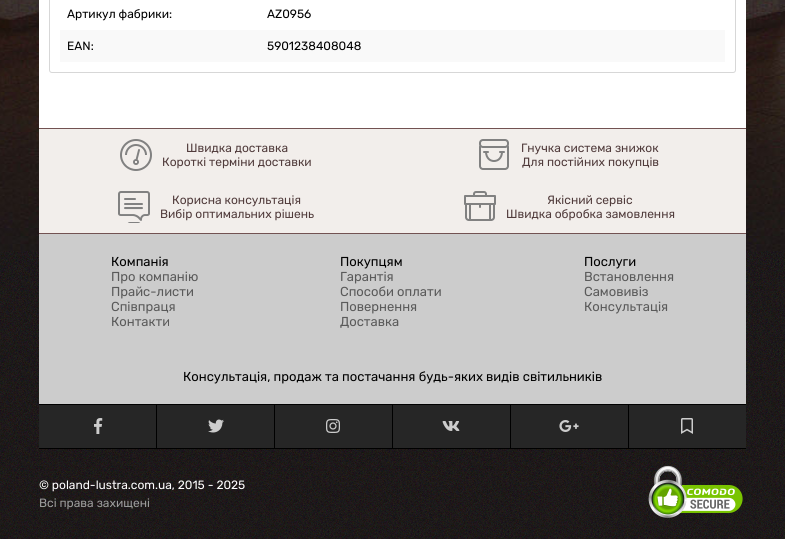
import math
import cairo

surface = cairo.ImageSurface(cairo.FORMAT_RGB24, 785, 539)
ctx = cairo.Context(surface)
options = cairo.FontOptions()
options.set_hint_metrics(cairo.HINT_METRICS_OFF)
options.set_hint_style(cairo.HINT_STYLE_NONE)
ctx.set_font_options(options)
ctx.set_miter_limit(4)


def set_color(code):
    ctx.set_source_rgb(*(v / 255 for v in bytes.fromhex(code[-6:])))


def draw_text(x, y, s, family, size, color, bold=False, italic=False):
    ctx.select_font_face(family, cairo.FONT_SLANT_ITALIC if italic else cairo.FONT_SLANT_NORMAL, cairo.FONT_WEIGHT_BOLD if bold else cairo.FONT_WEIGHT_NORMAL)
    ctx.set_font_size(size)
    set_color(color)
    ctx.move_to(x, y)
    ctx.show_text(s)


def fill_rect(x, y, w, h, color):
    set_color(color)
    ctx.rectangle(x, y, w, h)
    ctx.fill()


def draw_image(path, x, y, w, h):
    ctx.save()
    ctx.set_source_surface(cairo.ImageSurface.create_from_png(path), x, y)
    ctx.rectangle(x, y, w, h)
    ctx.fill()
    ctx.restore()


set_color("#ffffff")
ctx.paint()
draw_image("assets/img1.png", 0, 0, 785, 539)
fill_rect(39, 0, 707, 128, "#ffffff")
ctx.new_path()
ctx.move_to(49.5, -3.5)
ctx.line_to(733, -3.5)
ctx.curve_to(734.5, -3.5, 735.5, -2.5, 735.5, -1)
ctx.line_to(735.5, 70)
ctx.curve_to(735.5, 71.5, 734.5, 72.5, 733, 72.5)
ctx.line_to(52, 72.5)
ctx.curve_to(50.5, 72.5, 49.5, 71.5, 49.5, 70)
ctx.close_path()
set_color("#d7d7d7")
ctx.set_line_width(1)
ctx.stroke()
draw_text(67, 18, "Артикул фабрики:", "Rubik", 12, "#000000")
draw_text(267, 18, "AZ0956", "Rubik", 12, "#000000")
fill_rect(60, 30, 665, 32, "#f9f9f9")
draw_text(67, 50, "EAN:", "Rubik", 12, "#000000")
draw_text(267, 50, "5901238408048", "Rubik", 12, "#000000")
fill_rect(39, 129, 707, 104, "#f2eeeb")
fill_rect(39, 128, 707, 1, "#725252")
fill_rect(39, 233, 707, 1, "#725252")
draw_image("assets/img2.png", 120, 139, 32, 32)
draw_text(186, 152, "Швидка доставка", "Rubik", 12, "#513c3c")
draw_text(162, 166, "Короткі терміни доставки", "Rubik", 12, "#513c3c")
draw_image("assets/img3.png", 479, 139, 30, 31)
draw_text(521, 152, "Гнучка система знижок", "Rubik", 12, "#513c3c")
draw_text(522, 166, "Для постійних покупців", "Rubik", 12, "#513c3c")
draw_image("assets/img4.png", 118, 191, 32, 32)
draw_text(172, 204, "Корисна консультація", "Rubik", 12, "#513c3c")
draw_text(160, 218, "Вибір оптимальних рішень", "Rubik", 12, "#513c3c")
draw_image("assets/img5.png", 464, 191, 32, 30)
draw_text(547, 204, "Якісний сервіс", "Rubik", 12, "#513c3c")
draw_text(506, 218, "Швидка обробка замовлення", "Rubik", 12, "#513c3c")
fill_rect(39, 234, 707, 170, "#cccccc")
draw_text(111, 266, "Компанія", "Rubik", 13, "#000000")
draw_text(111, 281, "Про компанію", "Rubik", 13, "#5a5a5a")
draw_text(111, 296, "Прайс-листи", "Rubik", 13, "#5a5a5a")
draw_text(111, 311, "Співпраця", "Rubik", 13, "#5a5a5a")
draw_text(111, 326, "Контакти", "Rubik", 13, "#5a5a5a")
draw_text(340, 266, "Покупцям", "Rubik", 13, "#000000")
draw_text(340, 281, "Гарантія", "Rubik", 13, "#5a5a5a")
draw_text(340, 296, "Способи оплати", "Rubik", 13, "#5a5a5a")
draw_text(340, 311, "Повернення", "Rubik", 13, "#5a5a5a")
draw_text(340, 326, "Доставка", "Rubik", 13, "#5a5a5a")
draw_text(584, 266, "Послуги", "Rubik", 13, "#000000")
draw_text(584, 281, "Встановлення", "Rubik", 13, "#5a5a5a")
draw_text(584, 296, "Самовивіз", "Rubik", 13, "#5a5a5a")
draw_text(584, 311, "Консультація", "Rubik", 13, "#5a5a5a")
draw_text(183, 381, "Консультація, продаж та постачання будь-яких видів світильників", "Rubik", 13, "#000000")
fill_rect(39, 405, 707, 43, "#262626")
fill_rect(39, 404, 707, 1, "#000000")
fill_rect(39, 448, 707, 1, "#000000")
fill_rect(156, 405, 1, 43, "#000000")
draw_image("assets/img6.png", 94, 418, 9, 16)
fill_rect(274, 405, 1, 43, "#000000")
draw_image("assets/img7.png", 208, 419, 16, 14)
fill_rect(392, 405, 1, 43, "#000000")
draw_image("assets/img8.png", 326, 419, 14, 14)
fill_rect(510, 405, 1, 43, "#000000")
draw_image("assets/img9.png", 442, 421, 18, 10)
fill_rect(628, 405, 1, 43, "#000000")
draw_image("assets/img10.png", 559, 420, 20, 12)
draw_image("assets/img11.png", 681, 418, 12, 16)
draw_text(39, 489, "© poland-lustra.com.ua, 2015 - 2025", "Rubik", 12, "#ffffff")
draw_text(39, 507, "Всі права захищені", "Rubik", 12, "#9c9c9c")
draw_image("assets/img12.png", 648, 465, 95, 53)
surface.write_to_png("output.png")
